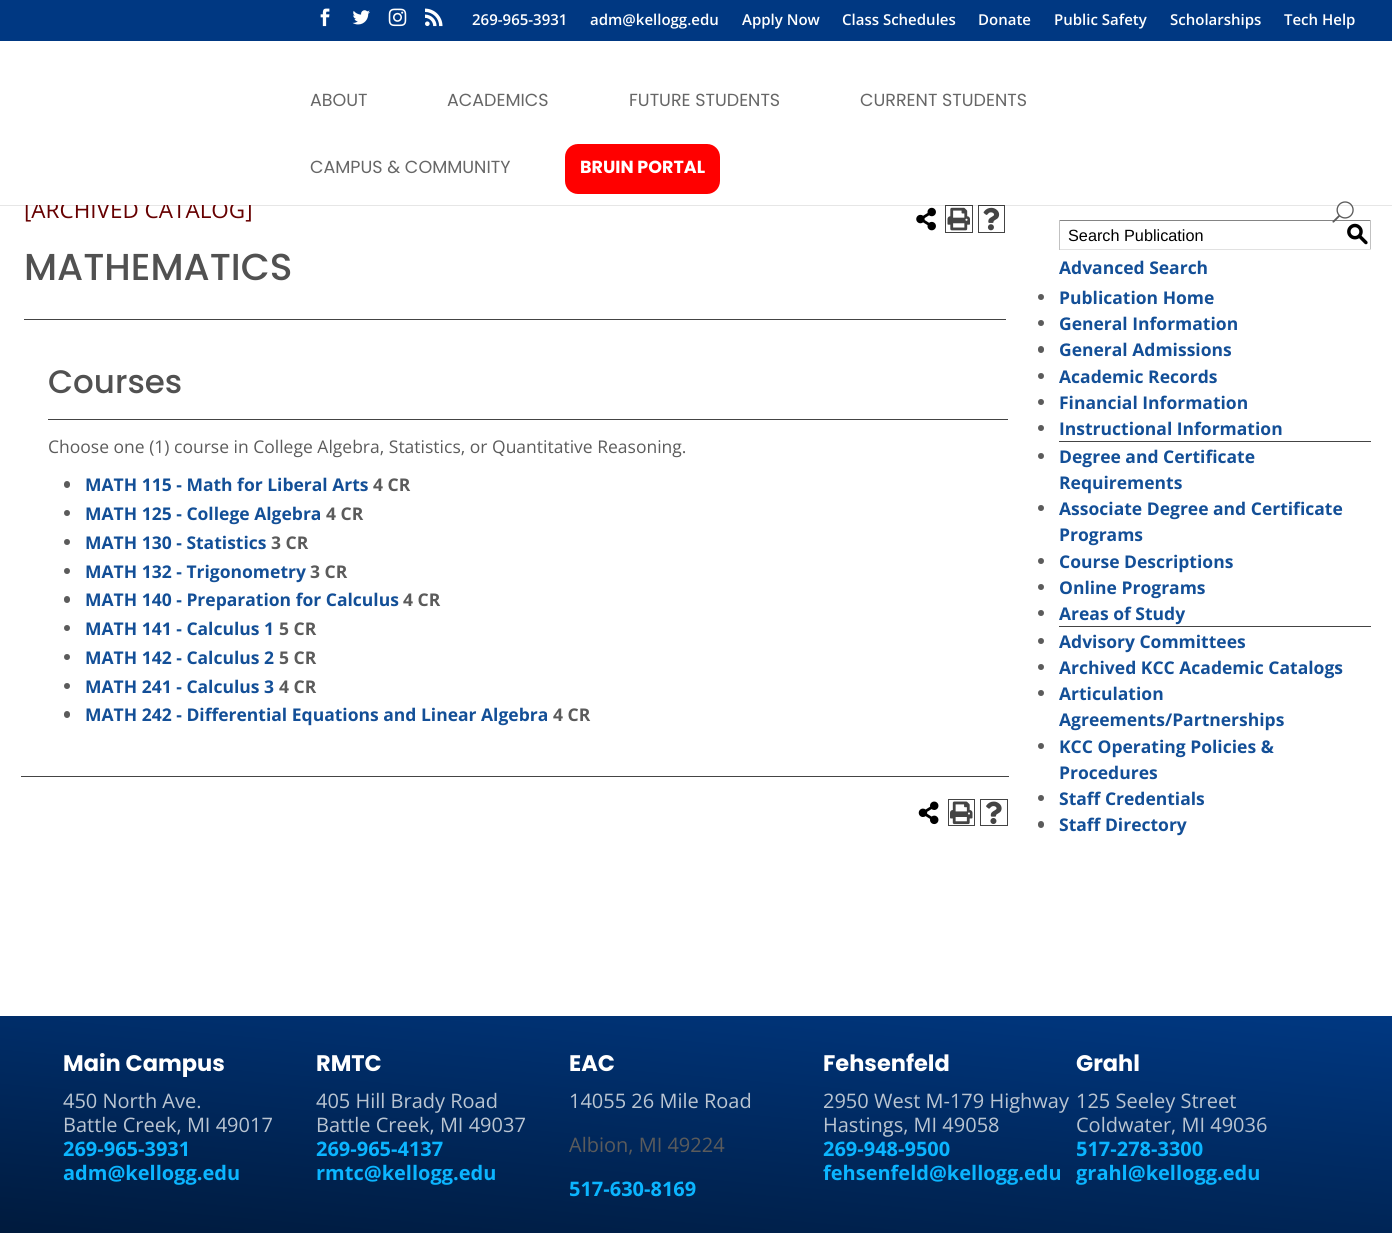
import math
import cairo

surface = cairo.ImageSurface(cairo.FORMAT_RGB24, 1392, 1233)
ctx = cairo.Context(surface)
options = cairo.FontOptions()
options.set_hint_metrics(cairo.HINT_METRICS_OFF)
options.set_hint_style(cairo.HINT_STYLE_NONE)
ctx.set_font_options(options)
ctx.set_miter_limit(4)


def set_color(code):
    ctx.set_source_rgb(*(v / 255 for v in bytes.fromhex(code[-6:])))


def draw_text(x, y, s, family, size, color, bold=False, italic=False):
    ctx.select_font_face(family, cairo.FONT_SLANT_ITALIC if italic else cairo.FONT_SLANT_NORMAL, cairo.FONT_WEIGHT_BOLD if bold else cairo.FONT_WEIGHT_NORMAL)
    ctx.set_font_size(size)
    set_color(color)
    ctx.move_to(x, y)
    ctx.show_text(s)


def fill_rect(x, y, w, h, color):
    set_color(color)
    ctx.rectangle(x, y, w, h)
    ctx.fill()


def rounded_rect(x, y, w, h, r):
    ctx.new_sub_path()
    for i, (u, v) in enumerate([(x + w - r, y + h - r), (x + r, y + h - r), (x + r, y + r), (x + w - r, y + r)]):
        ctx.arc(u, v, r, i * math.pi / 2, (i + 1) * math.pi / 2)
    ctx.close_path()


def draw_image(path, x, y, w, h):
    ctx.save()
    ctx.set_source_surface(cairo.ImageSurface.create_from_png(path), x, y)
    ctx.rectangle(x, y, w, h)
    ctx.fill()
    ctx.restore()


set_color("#ffffff")
ctx.paint()
fill_rect(0, 0, 1392, 41, "#003882")
draw_image("assets/img1.png", 320, 8, 10, 19)
draw_image("assets/img2.png", 352, 10, 18, 15)
draw_image("assets/img3.png", 388, 8, 19, 19)
draw_image("assets/img4.png", 425, 8, 18, 19)
draw_text(472, 25, "269-965-3931", "Open Sans SemiBold", 15, "#ffffff")
draw_text(590, 25, "adm@kellogg.edu", "Open Sans SemiBold", 15, "#ffffff")
draw_text(742, 25, "Apply Now", "Open Sans SemiBold", 15, "#ffffff")
draw_text(842, 25, "Class Schedules", "Open Sans SemiBold", 15, "#ffffff")
draw_text(978, 25, "Donate", "Open Sans SemiBold", 15, "#ffffff")
draw_text(1054, 25, "Public Safety", "Open Sans SemiBold", 15, "#ffffff")
draw_text(1170, 25, "Scholarships", "Open Sans SemiBold", 15, "#ffffff")
draw_text(1284, 25, "Tech Help", "Open Sans SemiBold", 15, "#ffffff")
ctx.rectangle(945.5, 205.5, 27, 27)
set_color("#444444")
ctx.set_line_width(1)
ctx.stroke()
ctx.rectangle(978.5, 205.5, 26, 27)
ctx.stroke()
ctx.set_source_rgba(0, 0, 0, 0.1)
ctx.new_path()
ctx.move_to(0, 205)
ctx.line_to(0, 206)
ctx.line_to(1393, 206)
ctx.line_to(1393, 43)
ctx.line_to(1392, 43)
ctx.line_to(1392, 205)
ctx.close_path()
ctx.fill()
draw_text(24, 218, "[ARCHIVED CATALOG]", "Open Sans", 22.5, "#660000")
fill_rect(25, 201, 226, 4, "#ffffff")
draw_text(310, 106, "ABOUT", "Poppins", 17.5, "#666666")
draw_text(447, 106, "ACADEMICS", "Poppins", 17.5, "#666666")
draw_text(629, 106, "FUTURE STUDENTS", "Poppins", 17.5, "#666666")
draw_text(860, 106, "CURRENT STUDENTS", "Poppins", 17.5, "#666666")
draw_text(310, 173, "CAMPUS & COMMUNITY", "Poppins", 17.5, "#666666")
set_color("#ff0000")
rounded_rect(565, 144, 155, 50, 13)
ctx.fill()
draw_text(580, 173, "BRUIN PORTAL", "Poppins", 17.5, "#ffffff", bold=True)
fill_rect(1059, 220, 312, 1, "#848484")
draw_image("assets/img5.png", 1332, 201, 22, 22)
draw_image("assets/img6.png", 916, 207, 20, 24)
draw_image("assets/img7.png", 947, 207, 23, 24)
draw_image("assets/img8.png", 983, 207, 17, 24)
draw_text(24, 280, "MATHEMATICS", "Poppins Medium", 37.5, "#515151")
fill_rect(24, 319, 982, 1, "#444444")
draw_text(48, 393, "Courses", "Poppins Medium", 32.5, "#515151")
fill_rect(48, 419, 960, 1, "#444444")
draw_text(48, 453, "Choose one (1) course in College Algebra, Statistics, or Quantitative Reasoning.", "Open Sans", 17.5, "#5b5b5b")
rounded_rect(64, 481, 6, 7, 3)
ctx.fill()
draw_text(85, 491, "MATH 115 - Math for Liberal Arts", "Open Sans", 17.5, "#134f97", bold=True)
draw_text(373, 491, "4 CR", "Open Sans", 17.5, "#5b5b5b", bold=True)
ctx.new_path()
ctx.arc(67, 513, 3, 0, 2 * math.pi)
ctx.fill()
draw_text(85, 520, "MATH 125 - College Algebra", "Open Sans", 17.5, "#134f97", bold=True)
draw_text(326, 520, "4 CR", "Open Sans", 17.5, "#5b5b5b", bold=True)
ctx.new_path()
ctx.arc(67, 542, 3, 0, 2 * math.pi)
ctx.fill()
draw_text(85, 549, "MATH 130 - Statistics", "Open Sans", 17.5, "#134f97", bold=True)
draw_text(271, 549, "3 CR", "Open Sans", 17.5, "#5b5b5b", bold=True)
ctx.new_path()
ctx.arc(67, 571, 3, 0, 2 * math.pi)
ctx.fill()
draw_text(85, 578, "MATH 132 - Trigonometry", "Open Sans", 17.5, "#134f97", bold=True)
draw_text(310, 578, "3 CR", "Open Sans", 17.5, "#5b5b5b", bold=True)
rounded_rect(64, 596, 6, 7, 3)
ctx.fill()
draw_text(85, 606, "MATH 140 - Preparation for Calculus", "Open Sans", 17.5, "#134f97", bold=True)
draw_text(403, 606, "4 CR", "Open Sans", 17.5, "#5b5b5b", bold=True)
ctx.new_path()
ctx.arc(67, 628, 3, 0, 2 * math.pi)
ctx.fill()
draw_text(85, 635, "MATH 141 - Calculus 1", "Open Sans", 17.5, "#134f97", bold=True)
draw_text(279, 635, "5 CR", "Open Sans", 17.5, "#5b5b5b", bold=True)
ctx.new_path()
ctx.arc(67, 657, 3, 0, 2 * math.pi)
ctx.fill()
draw_text(85, 664, "MATH 142 - Calculus 2", "Open Sans", 17.5, "#134f97", bold=True)
draw_text(279, 664, "5 CR", "Open Sans", 17.5, "#5b5b5b", bold=True)
ctx.new_path()
ctx.arc(67, 686, 3, 0, 2 * math.pi)
ctx.fill()
draw_text(85, 693, "MATH 241 - Calculus 3", "Open Sans", 17.5, "#134f97", bold=True)
draw_text(279, 693, "4 CR", "Open Sans", 17.5, "#5b5b5b", bold=True)
rounded_rect(64, 711, 6, 7, 3)
ctx.fill()
draw_text(85, 721, "MATH 242 - Differential Equations and Linear Algebra", "Open Sans", 17.5, "#134f97", bold=True)
draw_text(553, 721, "4 CR", "Open Sans", 17.5, "#5b5b5b", bold=True)
fill_rect(21, 776, 988, 1, "#444444")
draw_image("assets/img9.png", 918, 801, 21, 24)
ctx.rectangle(948.5, 799.5, 26, 26)
ctx.stroke()
draw_image("assets/img10.png", 950, 801, 23, 24)
ctx.rectangle(980.5, 799.5, 27, 26)
ctx.stroke()
draw_image("assets/img11.png", 986, 801, 16, 23)
fill_rect(1370, 220, 1, 30, "#c1c1c1")
fill_rect(1059, 249, 312, 1, "#e1e1e1")
fill_rect(1059, 220, 1, 30, "#c1c1c1")
draw_text(1068, 241, "Search Publication", "Liberation Sans", 16.25, "#000000")
draw_text(1346, 241, "S", "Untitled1 Medium", 22.5, "#000000")
draw_text(1059, 274, "Advanced Search", "Open Sans", 17.5, "#134f97", bold=True)
set_color("#5b5b5b")
ctx.new_path()
ctx.arc(1041, 297, 3, 0, 2 * math.pi)
ctx.fill()
draw_text(1059, 304, "Publication Home", "Open Sans", 17.5, "#134f97", bold=True)
set_color("#5b5b5b")
ctx.new_path()
ctx.arc(1041, 323, 3, 0, 2 * math.pi)
ctx.fill()
draw_text(1059, 330, "General Information", "Open Sans", 17.5, "#134f97", bold=True)
set_color("#5b5b5b")
rounded_rect(1038, 346, 6, 7, 3)
ctx.fill()
draw_text(1059, 356, "General Admissions", "Open Sans", 17.5, "#134f97", bold=True)
set_color("#5b5b5b")
ctx.new_path()
ctx.arc(1041, 376, 3, 0, 2 * math.pi)
ctx.fill()
draw_text(1059, 383, "Academic Records", "Open Sans", 17.5, "#134f97", bold=True)
set_color("#5b5b5b")
ctx.new_path()
ctx.arc(1041, 402, 3, 0, 2 * math.pi)
ctx.fill()
draw_text(1059, 409, "Financial Information", "Open Sans", 17.5, "#134f97", bold=True)
set_color("#5b5b5b")
ctx.new_path()
ctx.arc(1041, 428, 3, 0, 2 * math.pi)
ctx.fill()
draw_text(1059, 435, "Instructional Information", "Open Sans", 17.5, "#134f97", bold=True)
fill_rect(1059, 441, 312, 1, "#444444")
set_color("#5b5b5b")
ctx.new_path()
ctx.arc(1041, 456, 3, 0, 2 * math.pi)
ctx.fill()
draw_text(1059, 463, "Degree and Certificate", "Open Sans", 17.5, "#134f97", bold=True)
draw_text(1059, 489, "Requirements", "Open Sans", 17.5, "#134f97", bold=True)
set_color("#5b5b5b")
ctx.new_path()
ctx.arc(1041, 508, 3, 0, 2 * math.pi)
ctx.fill()
draw_text(1059, 515, "Associate Degree and Certificate", "Open Sans", 17.5, "#134f97", bold=True)
draw_text(1059, 541, "Programs", "Open Sans", 17.5, "#134f97", bold=True)
set_color("#5b5b5b")
ctx.new_path()
ctx.arc(1041, 561, 3, 0, 2 * math.pi)
ctx.fill()
draw_text(1059, 568, "Course Descriptions", "Open Sans", 17.5, "#134f97", bold=True)
set_color("#5b5b5b")
ctx.new_path()
ctx.arc(1041, 587, 3, 0, 2 * math.pi)
ctx.fill()
draw_text(1059, 594, "Online Programs", "Open Sans", 17.5, "#134f97", bold=True)
set_color("#5b5b5b")
ctx.new_path()
ctx.arc(1041, 613, 3, 0, 2 * math.pi)
ctx.fill()
draw_text(1059, 620, "Areas of Study", "Open Sans", 17.5, "#134f97", bold=True)
fill_rect(1059, 626, 312, 1, "#444444")
set_color("#5b5b5b")
ctx.new_path()
ctx.arc(1041, 641, 3, 0, 2 * math.pi)
ctx.fill()
draw_text(1059, 648, "Advisory Committees", "Open Sans", 17.5, "#134f97", bold=True)
set_color("#5b5b5b")
ctx.new_path()
ctx.arc(1041, 667, 3, 0, 2 * math.pi)
ctx.fill()
draw_text(1059, 674, "Archived KCC Academic Catalogs", "Open Sans", 17.5, "#134f97", bold=True)
set_color("#5b5b5b")
ctx.new_path()
ctx.arc(1041, 693, 3, 0, 2 * math.pi)
ctx.fill()
draw_text(1059, 700, "Articulation", "Open Sans", 17.5, "#134f97", bold=True)
draw_text(1059, 726, "Agreements/Partnerships", "Open Sans", 17.5, "#134f97", bold=True)
set_color("#5b5b5b")
ctx.new_path()
ctx.arc(1041, 746, 3, 0, 2 * math.pi)
ctx.fill()
draw_text(1059, 753, "KCC Operating Policies &", "Open Sans", 17.5, "#134f97", bold=True)
draw_text(1059, 779, "Procedures", "Open Sans", 17.5, "#134f97", bold=True)
set_color("#5b5b5b")
ctx.new_path()
ctx.arc(1041, 798, 3, 0, 2 * math.pi)
ctx.fill()
draw_text(1059, 805, "Staff Credentials", "Open Sans", 17.5, "#134f97", bold=True)
set_color("#5b5b5b")
rounded_rect(1038, 821, 6, 7, 3)
ctx.fill()
draw_text(1059, 831, "Staff Directory", "Open Sans", 17.5, "#134f97", bold=True)
gradient = cairo.LinearGradient(724, 958, 669, 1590)
gradient.add_color_stop_rgba(0, 0, 0.22, 0.51, 1)
gradient.add_color_stop_rgba(1, 0, 0, 0, 1)
ctx.set_source(gradient)
ctx.rectangle(0, 1016, 1392, 217)
ctx.fill()
draw_text(63, 1071, "Main Campus", "Poppins", 22.5, "#ffffff", bold=True)
draw_text(63, 1108, "450 North Ave.", "Open Sans", 20, "#bac5d2")
draw_text(63, 1132, "Battle Creek, MI 49017", "Open Sans", 20, "#bac5d2")
draw_text(63, 1156, "269-965-3931", "Open Sans", 20, "#0bb5ff", bold=True)
draw_text(63, 1180, "adm@kellogg.edu", "Open Sans", 20, "#0bb5ff", bold=True)
draw_text(316, 1071, "RMTC", "Poppins", 22.5, "#ffffff", bold=True)
draw_text(316, 1108, "405 Hill Brady Road", "Open Sans", 20, "#bac5d2")
draw_text(316, 1132, "Battle Creek, MI 49037", "Open Sans", 20, "#bac5d2")
draw_text(316, 1156, "269-965-4137", "Open Sans", 20, "#0bb5ff", bold=True)
draw_text(316, 1180, "rmtc@kellogg.edu", "Open Sans", 20, "#0bb5ff", bold=True)
draw_text(569, 1071, "EAC", "Poppins", 22.5, "#ffffff", bold=True)
draw_text(569, 1108, "14055 26 Mile Road", "Open Sans", 20, "#bac5d2")
draw_text(569, 1152, "Albion, MI 49224", "Open Sans", 20, "#5b5b5b")
draw_text(569, 1196, "517-630-8169", "Open Sans", 20, "#0bb5ff", bold=True)
draw_text(823, 1071, "Fehsenfeld", "Poppins", 22.5, "#ffffff", bold=True)
draw_text(823, 1108, "2950 West M-179 Highway", "Open Sans", 20, "#bac5d2")
draw_text(823, 1132, "Hastings, MI 49058", "Open Sans", 20, "#bac5d2")
draw_text(823, 1156, "269-948-9500", "Open Sans", 20, "#0bb5ff", bold=True)
draw_text(823, 1180, "fehsenfeld@kellogg.edu", "Open Sans", 20, "#0bb5ff", bold=True)
draw_text(1076, 1071, "Grahl", "Poppins", 22.5, "#ffffff", bold=True)
draw_text(1076, 1108, "125 Seeley Street", "Open Sans", 20, "#bac5d2")
draw_text(1076, 1132, "Coldwater, MI 49036", "Open Sans", 20, "#bac5d2")
draw_text(1076, 1156, "517-278-3300", "Open Sans", 20, "#0bb5ff", bold=True)
draw_text(1076, 1180, "grahl@kellogg.edu", "Open Sans", 20, "#0bb5ff", bold=True)
surface.write_to_png("output.png")
